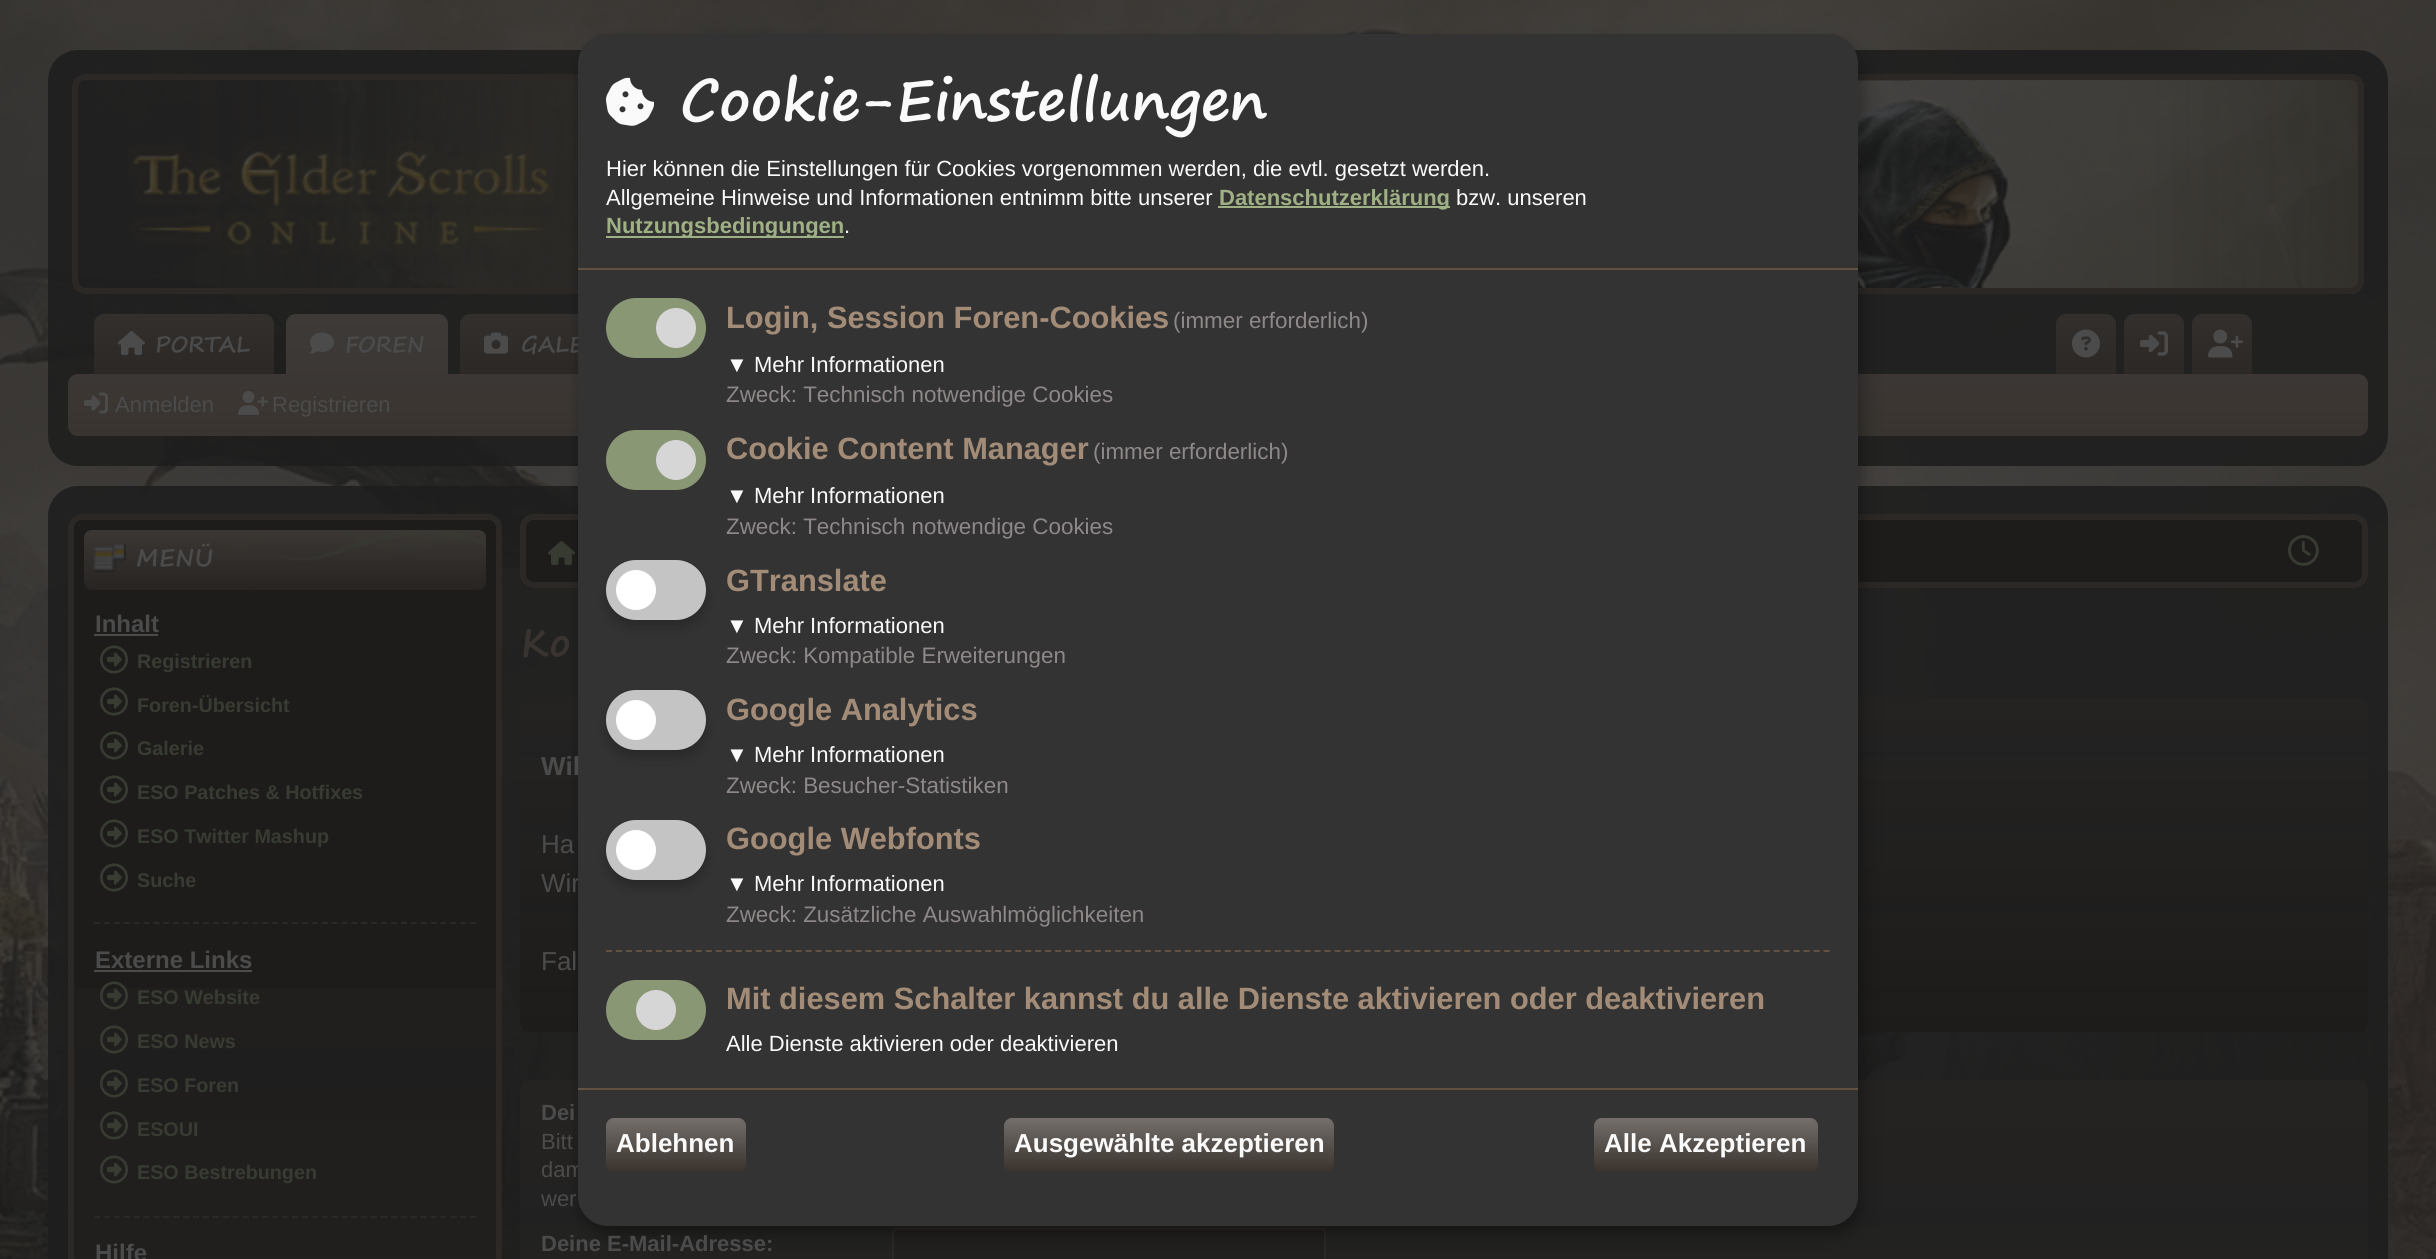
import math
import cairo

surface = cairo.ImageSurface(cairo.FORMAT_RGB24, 2436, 1259)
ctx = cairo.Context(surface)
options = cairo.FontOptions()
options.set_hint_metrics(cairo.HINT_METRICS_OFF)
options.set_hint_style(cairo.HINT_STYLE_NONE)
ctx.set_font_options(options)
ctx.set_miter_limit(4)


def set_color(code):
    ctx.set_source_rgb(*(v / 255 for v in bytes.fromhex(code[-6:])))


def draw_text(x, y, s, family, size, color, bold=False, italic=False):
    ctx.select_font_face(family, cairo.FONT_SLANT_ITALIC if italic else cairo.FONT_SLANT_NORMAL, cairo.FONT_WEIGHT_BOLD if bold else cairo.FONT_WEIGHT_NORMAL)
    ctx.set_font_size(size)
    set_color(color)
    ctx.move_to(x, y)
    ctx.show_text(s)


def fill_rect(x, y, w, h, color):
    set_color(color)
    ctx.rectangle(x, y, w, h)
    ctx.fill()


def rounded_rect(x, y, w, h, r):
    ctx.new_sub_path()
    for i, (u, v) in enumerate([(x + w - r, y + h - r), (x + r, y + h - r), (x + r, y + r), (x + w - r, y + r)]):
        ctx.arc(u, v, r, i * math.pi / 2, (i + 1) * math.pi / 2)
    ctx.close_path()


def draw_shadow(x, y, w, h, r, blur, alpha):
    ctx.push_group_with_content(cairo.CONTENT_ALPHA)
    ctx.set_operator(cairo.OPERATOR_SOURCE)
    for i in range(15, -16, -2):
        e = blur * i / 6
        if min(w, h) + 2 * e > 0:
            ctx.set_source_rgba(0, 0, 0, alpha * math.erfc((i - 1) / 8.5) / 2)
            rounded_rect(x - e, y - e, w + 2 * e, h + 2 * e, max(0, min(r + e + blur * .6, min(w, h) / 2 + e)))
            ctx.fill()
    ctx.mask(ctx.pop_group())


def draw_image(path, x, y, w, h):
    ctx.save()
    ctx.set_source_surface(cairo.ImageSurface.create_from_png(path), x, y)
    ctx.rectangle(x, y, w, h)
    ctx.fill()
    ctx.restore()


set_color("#ffffff")
ctx.paint()
draw_image("assets/img1.png", 0, 0, 2436, 1259)
draw_image("assets/img2.png", 48, 50, 2340, 416)
draw_image("assets/img3.png", 195, 74, 2169, 220)
rounded_rect(75, 77, 2286, 214, 11)
set_color("#2c2825")
ctx.set_line_width(6)
ctx.stroke()
draw_image("assets/img4.png", 128, 139, 428, 118)
ctx.new_path()
ctx.move_to(104, 314)
ctx.line_to(264, 314)
ctx.curve_to(269.5, 314, 274, 318.5, 274, 324)
ctx.line_to(274, 374)
ctx.line_to(94, 374)
ctx.line_to(94, 324)
ctx.curve_to(94, 318.5, 98.5, 314, 104, 314)
ctx.close_path()
ctx.fill()
gradient = cairo.LinearGradient(184, 314, 184, 374)
gradient.add_color_stop_rgba(0, 0.294, 0.294, 0.294, 0.2)
gradient.add_color_stop_rgba(1, 0.294, 0.294, 0.294, 0)
ctx.set_source(gradient)
ctx.new_path()
ctx.move_to(104, 314)
ctx.line_to(264, 314)
ctx.curve_to(269.5, 314, 274, 318.5, 274, 324)
ctx.line_to(274, 374)
ctx.line_to(94, 374)
ctx.line_to(94, 324)
ctx.curve_to(94, 318.5, 98.5, 314, 104, 314)
ctx.close_path()
ctx.fill()
draw_image("assets/img5.png", 118, 331, 27, 24)
draw_text(155, 352, "PORTAL", "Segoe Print", 22, "#4b4b4b", bold=True)
set_color("#393430")
ctx.new_path()
ctx.move_to(296, 314)
ctx.line_to(438, 314)
ctx.curve_to(443.5, 314, 448, 318.5, 448, 324)
ctx.line_to(448, 374)
ctx.line_to(286, 374)
ctx.line_to(286, 324)
ctx.curve_to(286, 318.5, 290.5, 314, 296, 314)
ctx.close_path()
ctx.fill()
gradient = cairo.LinearGradient(367, 314, 367, 374)
gradient.add_color_stop_rgba(0, 0.294, 0.294, 0.294, 0.25)
gradient.add_color_stop_rgba(1, 0.294, 0.294, 0.294, 0.15)
ctx.set_source(gradient)
ctx.new_path()
ctx.move_to(296, 314)
ctx.line_to(438, 314)
ctx.curve_to(443.5, 314, 448, 318.5, 448, 324)
ctx.line_to(448, 374)
ctx.line_to(286, 374)
ctx.line_to(286, 324)
ctx.curve_to(286, 318.5, 290.5, 314, 296, 314)
ctx.close_path()
ctx.fill()
draw_image("assets/img6.png", 310, 332, 24, 22)
draw_text(345, 352, "FOREN", "Segoe Print", 22, "#4b4b4b", bold=True)
set_color("#393430")
rounded_rect(68, 374, 2300, 62, 10)
ctx.fill()
gradient = cairo.LinearGradient(1218, 374, 1218, 436)
gradient.add_color_stop_rgba(0, 0.294, 0.294, 0.294, 0.15)
gradient.add_color_stop_rgba(1, 0.294, 0.294, 0.294, 0)
ctx.set_source(gradient)
rounded_rect(68, 374, 2300, 62, 10)
ctx.fill()
set_color("#393430")
ctx.new_path()
ctx.move_to(290, 372)
ctx.line_to(444, 372)
ctx.curve_to(446, 372, 448, 374, 448, 376)
ctx.line_to(286, 376)
ctx.curve_to(286, 374, 288, 372, 290, 372)
ctx.close_path()
ctx.fill()
ctx.set_source_rgba(0.294, 0.294, 0.294, 0.15)
ctx.new_path()
ctx.move_to(290, 372)
ctx.line_to(444, 372)
ctx.curve_to(446, 372, 448, 374, 448, 376)
ctx.line_to(286, 376)
ctx.curve_to(286, 374, 288, 372, 290, 372)
ctx.close_path()
ctx.fill()
set_color("#2c2825")
ctx.new_path()
ctx.move_to(470, 314)
ctx.line_to(636, 314)
ctx.curve_to(641.5, 314, 646, 318.5, 646, 324)
ctx.line_to(646, 374)
ctx.line_to(460, 374)
ctx.line_to(460, 324)
ctx.curve_to(460, 318.5, 464.5, 314, 470, 314)
ctx.close_path()
ctx.fill()
gradient = cairo.LinearGradient(553, 314, 553, 374)
gradient.add_color_stop_rgba(0, 0.294, 0.294, 0.294, 0.2)
gradient.add_color_stop_rgba(1, 0.294, 0.294, 0.294, 0)
ctx.set_source(gradient)
ctx.new_path()
ctx.move_to(470, 314)
ctx.line_to(636, 314)
ctx.curve_to(641.5, 314, 646, 318.5, 646, 324)
ctx.line_to(646, 374)
ctx.line_to(460, 374)
ctx.line_to(460, 324)
ctx.curve_to(460, 318.5, 464.5, 314, 470, 314)
ctx.close_path()
ctx.fill()
draw_image("assets/img7.png", 484, 332, 24, 22)
draw_text(521, 352, "GALE", "Segoe Print", 22, "#4b4b4b", bold=True)
set_color("#2c2825")
ctx.new_path()
ctx.move_to(2066, 314)
ctx.line_to(2106, 314)
ctx.curve_to(2111.5, 314, 2116, 318.5, 2116, 324)
ctx.line_to(2116, 374)
ctx.line_to(2056, 374)
ctx.line_to(2056, 324)
ctx.curve_to(2056, 318.5, 2060.5, 314, 2066, 314)
ctx.close_path()
ctx.fill()
gradient = cairo.LinearGradient(2086, 314, 2086, 374)
gradient.add_color_stop_rgba(0, 0.294, 0.294, 0.294, 0.2)
gradient.add_color_stop_rgba(1, 0.294, 0.294, 0.294, 0)
ctx.set_source(gradient)
ctx.new_path()
ctx.move_to(2066, 314)
ctx.line_to(2106, 314)
ctx.curve_to(2111.5, 314, 2116, 318.5, 2116, 324)
ctx.line_to(2116, 374)
ctx.line_to(2056, 374)
ctx.line_to(2056, 324)
ctx.curve_to(2056, 318.5, 2060.5, 314, 2066, 314)
ctx.close_path()
ctx.fill()
draw_image("assets/img8.png", 2072, 329, 28, 29)
set_color("#2c2825")
ctx.new_path()
ctx.move_to(2134, 314)
ctx.line_to(2174, 314)
ctx.curve_to(2179.5, 314, 2184, 318.5, 2184, 324)
ctx.line_to(2184, 374)
ctx.line_to(2124, 374)
ctx.line_to(2124, 324)
ctx.curve_to(2124, 318.5, 2128.5, 314, 2134, 314)
ctx.close_path()
ctx.fill()
gradient = cairo.LinearGradient(2154, 314, 2154, 374)
gradient.add_color_stop_rgba(0, 0.294, 0.294, 0.294, 0.2)
gradient.add_color_stop_rgba(1, 0.294, 0.294, 0.294, 0)
ctx.set_source(gradient)
ctx.new_path()
ctx.move_to(2134, 314)
ctx.line_to(2174, 314)
ctx.curve_to(2179.5, 314, 2184, 318.5, 2184, 324)
ctx.line_to(2184, 374)
ctx.line_to(2124, 374)
ctx.line_to(2124, 324)
ctx.curve_to(2124, 318.5, 2128.5, 314, 2134, 314)
ctx.close_path()
ctx.fill()
draw_image("assets/img9.png", 2140, 331, 28, 25)
set_color("#2c2825")
ctx.new_path()
ctx.move_to(2202, 314)
ctx.line_to(2242, 314)
ctx.curve_to(2247.5, 314, 2252, 318.5, 2252, 324)
ctx.line_to(2252, 374)
ctx.line_to(2192, 374)
ctx.line_to(2192, 324)
ctx.curve_to(2192, 318.5, 2196.5, 314, 2202, 314)
ctx.close_path()
ctx.fill()
gradient = cairo.LinearGradient(2222, 314, 2222, 374)
gradient.add_color_stop_rgba(0, 0.294, 0.294, 0.294, 0.2)
gradient.add_color_stop_rgba(1, 0.294, 0.294, 0.294, 0)
ctx.set_source(gradient)
ctx.new_path()
ctx.move_to(2202, 314)
ctx.line_to(2242, 314)
ctx.curve_to(2247.5, 314, 2252, 318.5, 2252, 324)
ctx.line_to(2252, 374)
ctx.line_to(2192, 374)
ctx.line_to(2192, 324)
ctx.curve_to(2192, 318.5, 2196.5, 314, 2202, 314)
ctx.close_path()
ctx.fill()
draw_image("assets/img10.png", 2208, 329, 35, 29)
draw_image("assets/img11.png", 84, 392, 24, 22)
draw_text(115, 412, "Anmelden", "Liberation Sans", 22, "#4b4b4b")
draw_image("assets/img12.png", 238, 391, 30, 24)
draw_text(272, 412, "Registrieren", "Liberation Sans", 22, "#4b4b4b")
draw_image("assets/img14.png", 48, 486, 2340, 773)
set_color("#1d1c1b")
rounded_rect(523, 517, 1842, 68, 11)
ctx.fill_preserve()
set_color("#2c2825")
ctx.stroke()
draw_image("assets/img28.png", 548, 541, 27, 24)
set_color("#1d1c1b")
rounded_rect(520, 698, 1848, 334, 10)
ctx.fill()
gradient = cairo.LinearGradient(1444, 698, 1444, 1032)
gradient.add_color_stop_rgba(0, 0.294, 0.294, 0.294, 0.15)
gradient.add_color_stop_rgba(1, 0.294, 0.294, 0.294, 0)
ctx.set_source(gradient)
rounded_rect(520, 698, 1848, 334, 10)
ctx.fill()
set_color("#1d1c1b")
rounded_rect(520, 1080, 1848, 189, 10)
ctx.fill()
gradient = cairo.LinearGradient(1444, 1080, 1444, 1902)
gradient.add_color_stop_rgba(0, 0.294, 0.294, 0.294, 0.15)
gradient.add_color_stop_rgba(1, 0.294, 0.294, 0.294, 0)
ctx.set_source(gradient)
rounded_rect(520, 1080, 1848, 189, 10)
ctx.fill()
set_color("#21201e")
rounded_rect(893, 1229, 432, 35, 3)
ctx.fill_preserve()
set_color("#2c2825")
ctx.set_line_width(2)
ctx.stroke()
set_color("#000000")
draw_shadow(588, 44, 1280, 1192, 30, 10, 0.19)
draw_shadow(578, 42, 1280, 1192, 30, 6, 0.2)
draw_text(541, 892, "Wir", "Liberation Sans", 26, "#4b4b4b")
draw_text(541, 1177, "dam", "Liberation Sans", 22, "#4b4b4b")
set_color("#333333")
rounded_rect(578, 34, 1280, 1192, 30)
ctx.fill()
fill_rect(578, 268, 1280, 2, "#625040")
draw_image("assets/img13.png", 606, 77, 48, 49)
draw_text(680, 120, "Cookie-Einstellungen", "Segoe Print", 56, "#fafafa", bold=True)
draw_text(606, 176, "Hier können die Einstellungen für Cookies vorgenommen werden, die evtl. gesetzt werden.", "Liberation Sans", 22, "#fafafa")
draw_text(606, 205, "Allgemeine Hinweise und Informationen entnimm bitte unserer", "Liberation Sans", 22, "#fafafa")
fill_rect(1218, 206, 232, 2, "#9fb084")
draw_text(1219, 205, "Datenschutzerklärung", "Liberation Sans", 22, "#9fb084", bold=True)
draw_text(1456, 205, "bzw. unseren", "Liberation Sans", 22, "#fafafa")
fill_rect(606, 236, 238, 2, "#9fb084")
draw_text(606, 233, "Nutzungsbedingungen", "Liberation Sans", 22, "#9fb084", bold=True)
draw_text(844, 233, ".", "Liberation Sans", 22, "#fafafa")
set_color("#899774")
rounded_rect(606, 298, 100, 60, 30)
ctx.fill()
set_color("#d6d6d6")
ctx.arc(676, 328, 20, 0, 2 * math.pi)
ctx.fill()
draw_text(726, 328, "Login, Session Foren-Cookies", "Liberation Sans", 30.8, "#a38c77", bold=True)
draw_text(1173, 328, "(immer erforderlich)", "Liberation Sans", 22.4, "#8e8888")
draw_text(726, 372, "▼ Mehr Informationen", "Liberation Sans", 22, "#fafafa")
draw_text(726, 402, "Zweck: Technisch notwendige Cookies", "Liberation Sans", 22.4, "#8e8888")
set_color("#899774")
rounded_rect(606, 430, 100, 60, 30)
ctx.fill()
set_color("#d6d6d6")
ctx.arc(676, 460, 20, 0, 2 * math.pi)
ctx.fill()
draw_text(726, 459, "Cookie Content Manager", "Liberation Sans", 30.8, "#a38c77", bold=True)
draw_text(1093, 459, "(immer erforderlich)", "Liberation Sans", 22.4, "#8e8888")
draw_text(726, 503, "▼ Mehr Informationen", "Liberation Sans", 22, "#fafafa")
draw_text(726, 534, "Zweck: Technisch notwendige Cookies", "Liberation Sans", 22.4, "#8e8888")
set_color("#000000")
draw_shadow(606, 568, 100, 60, 30, 6, 0.2)
set_color("#c5c4c4")
rounded_rect(606, 560, 100, 60, 30)
ctx.fill()
set_color("#ffffff")
ctx.arc(636, 590, 20, 0, 2 * math.pi)
ctx.fill()
draw_text(726, 591, "GTranslate", "Liberation Sans", 30.8, "#a38c77", bold=True)
draw_text(726, 633, "▼ Mehr Informationen", "Liberation Sans", 22, "#fafafa")
draw_text(726, 663, "Zweck: Kompatible Erweiterungen", "Liberation Sans", 22.4, "#8e8888")
set_color("#000000")
draw_shadow(606, 698, 100, 60, 30, 6, 0.2)
set_color("#c5c4c4")
rounded_rect(606, 690, 100, 60, 30)
ctx.fill()
set_color("#ffffff")
ctx.arc(636, 720, 20, 0, 2 * math.pi)
ctx.fill()
draw_text(726, 720, "Google Analytics", "Liberation Sans", 30.8, "#a38c77", bold=True)
draw_text(726, 762, "▼ Mehr Informationen", "Liberation Sans", 22, "#fafafa")
draw_text(726, 793, "Zweck: Besucher-Statistiken", "Liberation Sans", 22.4, "#8e8888")
set_color("#000000")
draw_shadow(606, 828, 100, 60, 30, 6, 0.2)
set_color("#c5c4c4")
rounded_rect(606, 820, 100, 60, 30)
ctx.fill()
set_color("#ffffff")
ctx.arc(636, 850, 20, 0, 2 * math.pi)
ctx.fill()
draw_text(726, 849, "Google Webfonts", "Liberation Sans", 30.8, "#a38c77", bold=True)
draw_text(726, 891, "▼ Mehr Informationen", "Liberation Sans", 22, "#fafafa")
draw_text(726, 922, "Zweck: Zusätzliche Auswahlmöglichkeiten", "Liberation Sans", 22.4, "#8e8888")
ctx.new_path()
ctx.move_to(606, 951)
ctx.line_to(1830, 951)
set_color("#625040")
ctx.set_dash([6, 3.98])
ctx.stroke()
set_color("#899774")
rounded_rect(606, 980, 100, 60, 30)
ctx.fill()
set_color("#d6d6d6")
ctx.arc(656, 1010, 20, 0, 2 * math.pi)
ctx.fill()
draw_text(726, 1009, "Mit diesem Schalter kannst du alle Dienste aktivieren oder deaktivieren", "Liberation Sans", 30.8, "#a38c77", bold=True)
draw_text(726, 1051, "Alle Dienste aktivieren oder deaktivieren", "Liberation Sans", 22, "#fafafa")
fill_rect(578, 1088, 1280, 2, "#625040")
set_color("#39322d")
rounded_rect(606, 1118, 140, 54, 8)
ctx.fill()
gradient = cairo.LinearGradient(676, 1118, 676, 1172)
gradient.add_color_stop_rgba(0, 1, 1, 1, 0.3)
gradient.add_color_stop_rgba(1, 1, 1, 1, 0)
ctx.set_source(gradient)
rounded_rect(606, 1118, 140, 54, 8)
ctx.fill()
draw_text(616, 1152, "Ablehnen", "Liberation Sans", 26, "#fafafa", bold=True)
set_color("#39322d")
rounded_rect(1004, 1118, 330, 54, 8)
ctx.fill()
gradient = cairo.LinearGradient(1169, 1118, 1169, 1172)
gradient.add_color_stop_rgba(0, 1, 1, 1, 0.3)
gradient.add_color_stop_rgba(1, 1, 1, 1, 0)
ctx.set_source(gradient)
rounded_rect(1004, 1118, 330, 54, 8)
ctx.fill()
draw_text(1014, 1152, "Ausgewählte akzeptieren", "Liberation Sans", 26, "#fafafa", bold=True)
set_color("#39322d")
rounded_rect(1594, 1118, 224, 54, 8)
ctx.fill()
gradient = cairo.LinearGradient(1706, 1118, 1706, 1172)
gradient.add_color_stop_rgba(0, 1, 1, 1, 0.3)
gradient.add_color_stop_rgba(1, 1, 1, 1, 0)
ctx.set_source(gradient)
rounded_rect(1594, 1118, 224, 54, 8)
ctx.fill()
draw_text(1604, 1152, "Alle Akzeptieren", "Liberation Sans", 26, "#fafafa", bold=True)
set_color("#1d1c1b")
rounded_rect(68, 514, 434, 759, 14)
ctx.fill()
gradient = cairo.LinearGradient(285, 520, 285, 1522)
gradient.add_color_stop_rgba(0, 0.294, 0.294, 0.294, 0)
gradient.add_color_stop_rgba(1, 0.294, 0.294, 0.294, 0.1)
ctx.set_source(gradient)
ctx.rectangle(74, 988, 422, 271)
ctx.fill()
rounded_rect(71, 517, 428, 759, 11)
set_color("#2c2825")
ctx.set_line_width(6)
ctx.set_dash([])
ctx.stroke()
set_color("#272422")
rounded_rect(84, 530, 402, 60, 8)
ctx.fill()
draw_image("assets/img15.png", 84, 530, 402, 58)
draw_image("assets/img16.png", 94, 543, 32, 30)
draw_text(136, 566, "MENÜ", "Segoe Print", 24, "#4b4b4b", bold=True)
draw_text(95, 632, "Inhalt", "Liberation Sans", 24, "#4b4b4b", bold=True)
fill_rect(94, 634, 64, 2, "#4b4b4b")
draw_image("assets/img17.png", 100, 645, 28, 29)
draw_text(137, 668, "Registrieren", "Liberation Sans", 19.75, "#383b32", bold=True)
draw_image("assets/img18.png", 100, 687, 28, 29)
draw_text(137, 712, "Foren-Übersicht", "Liberation Sans", 19.75, "#383b32", bold=True)
draw_image("assets/img19.png", 100, 731, 28, 29)
draw_text(137, 755, "Galerie", "Liberation Sans", 19.75, "#383b32", bold=True)
draw_image("assets/img20.png", 100, 775, 28, 29)
draw_text(137, 799, "ESO Patches & Hotfixes", "Liberation Sans", 19.75, "#383b32", bold=True)
draw_image("assets/img21.png", 100, 819, 28, 29)
draw_text(137, 843, "ESO Twitter Mashup", "Liberation Sans", 19.75, "#383b32", bold=True)
draw_image("assets/img22.png", 100, 863, 28, 29)
draw_text(137, 887, "Suche", "Liberation Sans", 19.75, "#383b32", bold=True)
ctx.new_path()
ctx.move_to(94, 923)
ctx.line_to(476, 923)
set_color("#2c2825")
ctx.set_line_width(2)
ctx.set_dash([6, 3.9])
ctx.stroke()
draw_text(95, 968, "Externe Links", "Liberation Sans", 24, "#4b4b4b", bold=True)
fill_rect(94, 970, 158, 2, "#4b4b4b")
draw_image("assets/img23.png", 100, 981, 28, 29)
draw_text(137, 1004, "ESO Website", "Liberation Sans", 19.75, "#383b32", bold=True)
draw_image("assets/img24.png", 100, 1025, 28, 29)
draw_text(137, 1048, "ESO News", "Liberation Sans", 19.75, "#383b32", bold=True)
draw_image("assets/img25.png", 100, 1069, 28, 29)
draw_text(137, 1092, "ESO Foren", "Liberation Sans", 19.75, "#383b32", bold=True)
draw_image("assets/img26.png", 100, 1111, 28, 29)
draw_text(137, 1136, "ESOUI", "Liberation Sans", 19.75, "#383b32", bold=True)
draw_image("assets/img27.png", 100, 1155, 28, 29)
draw_text(137, 1179, "ESO Bestrebungen", "Liberation Sans", 19.75, "#383b32", bold=True)
ctx.new_path()
ctx.move_to(94, 1217)
ctx.line_to(476, 1217)
set_color("#2c2825")
ctx.stroke()
draw_text(95, 1261, "Hilfe", "Liberation Sans", 24, "#4b4b4b", bold=True)
draw_image("assets/img29.png", 2288, 535, 31, 31)
draw_text(521, 656, "Ko", "Segoe Print", 38, "#393430", bold=True)
draw_text(541, 775, "Wil", "Liberation Sans", 26, "#4b4b4b", bold=True)
draw_text(541, 853, "Ha", "Liberation Sans", 26, "#4b4b4b")
draw_text(541, 970, "Fal", "Liberation Sans", 26, "#4b4b4b")
draw_text(541, 1120, "Dei", "Liberation Sans", 22, "#4b4b4b", bold=True)
draw_text(541, 1149, "Bitt", "Liberation Sans", 22, "#4b4b4b")
draw_text(541, 1206, "wer", "Liberation Sans", 22, "#4b4b4b")
draw_text(541, 1251, "Deine E-Mail-Adresse:", "Liberation Sans", 22, "#4b4b4b", bold=True)
surface.write_to_png("output.png")
